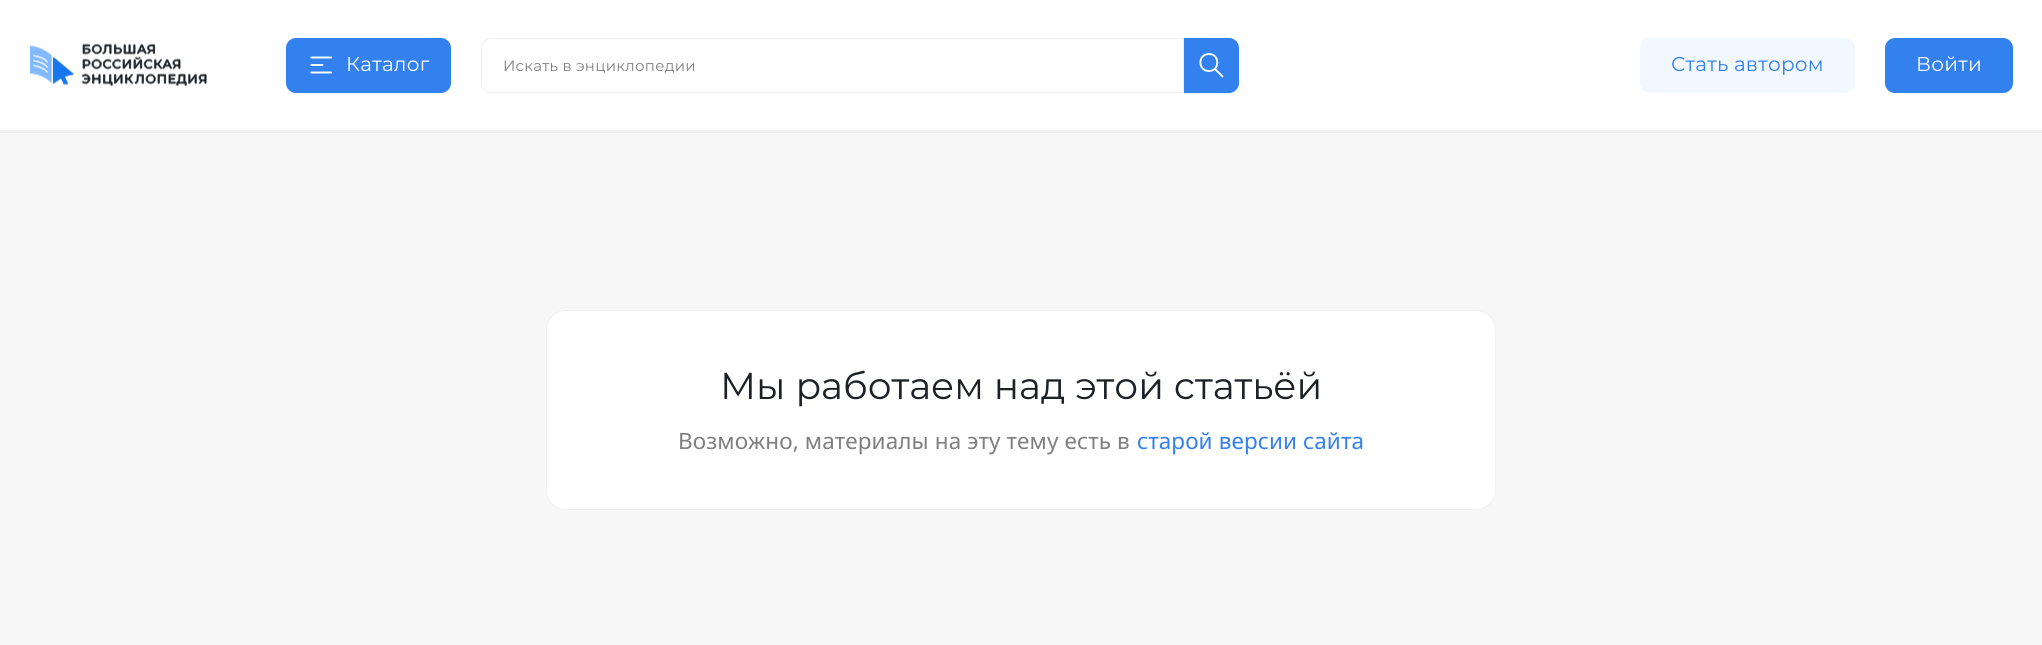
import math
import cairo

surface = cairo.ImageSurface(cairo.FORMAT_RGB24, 2042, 645)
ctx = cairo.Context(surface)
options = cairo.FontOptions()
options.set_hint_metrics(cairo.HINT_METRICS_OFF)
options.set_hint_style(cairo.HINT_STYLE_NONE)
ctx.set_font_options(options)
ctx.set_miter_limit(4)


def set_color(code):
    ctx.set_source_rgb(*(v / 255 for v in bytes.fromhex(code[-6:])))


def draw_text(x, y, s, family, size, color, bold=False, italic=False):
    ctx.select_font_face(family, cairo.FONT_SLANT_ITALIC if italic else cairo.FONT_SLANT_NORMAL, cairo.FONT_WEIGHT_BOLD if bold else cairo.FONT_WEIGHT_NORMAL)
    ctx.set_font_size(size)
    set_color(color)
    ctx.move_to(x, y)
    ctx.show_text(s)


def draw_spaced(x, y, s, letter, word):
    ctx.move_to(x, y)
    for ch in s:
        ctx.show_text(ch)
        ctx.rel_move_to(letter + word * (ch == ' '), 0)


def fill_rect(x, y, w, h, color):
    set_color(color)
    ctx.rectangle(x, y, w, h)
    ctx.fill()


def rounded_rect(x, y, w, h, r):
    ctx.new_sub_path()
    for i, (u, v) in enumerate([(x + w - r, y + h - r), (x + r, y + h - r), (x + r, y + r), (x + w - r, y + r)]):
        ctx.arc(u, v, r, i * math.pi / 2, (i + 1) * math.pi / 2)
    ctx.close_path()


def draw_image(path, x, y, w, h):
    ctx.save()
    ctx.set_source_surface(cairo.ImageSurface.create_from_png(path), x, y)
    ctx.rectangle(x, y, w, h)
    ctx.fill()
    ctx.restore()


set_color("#f7f7f7")
ctx.paint()
fill_rect(0, 0, 2042, 130, "#ffffff")
fill_rect(0, 130, 2042, 3, "#f0f0f0")
draw_image("assets/img1.png", 30, 43, 177, 44)
set_color("#3380ef")
rounded_rect(286, 38, 165, 55, 10)
ctx.fill()
draw_image("assets/img2.png", 310, 56, 23, 18)
ctx.select_font_face("Montserrat")
ctx.set_font_size(20)
set_color("#ffffff")
draw_spaced(346, 71, "Каталог", 0.25, 0)
ctx.new_path()
ctx.move_to(491, 38.5)
ctx.line_to(1183.5, 38.5)
ctx.line_to(1183.5, 92.5)
ctx.line_to(491, 92.5)
ctx.curve_to(486, 92.5, 481.5, 88, 481.5, 83)
ctx.line_to(481.5, 48)
ctx.curve_to(481.5, 43, 486, 38.5, 491, 38.5)
ctx.close_path()
set_color("#f0f0f0")
ctx.set_line_width(1)
ctx.stroke()
ctx.set_font_size(15)
set_color("#808080")
draw_spaced(503, 71, "Искать в энциклопедии", 0.25, 0)
set_color("#3380ef")
ctx.new_path()
ctx.move_to(1184, 38)
ctx.line_to(1229, 38)
ctx.curve_to(1234.5, 38, 1239, 42.5, 1239, 48)
ctx.line_to(1239, 83)
ctx.curve_to(1239, 88.5, 1234.5, 93, 1229, 93)
ctx.line_to(1184, 93)
ctx.close_path()
ctx.fill()
ctx.new_path()
ctx.move_to(1209, 71)
ctx.curve_to(1220, 71, 1220, 54, 1209, 54)
ctx.curve_to(1197.5, 54, 1197.5, 71, 1209, 71)
ctx.close_path()
ctx.move_to(1222.5, 76.5)
ctx.line_to(1215.5, 69.5)
set_color("#ffffff")
ctx.set_line_width(1.9)
ctx.set_line_cap(cairo.LINE_CAP_ROUND)
ctx.set_line_join(cairo.LINE_JOIN_ROUND)
ctx.stroke()
set_color("#f1f8ff")
rounded_rect(1640, 38, 215, 55, 10)
ctx.fill()
ctx.set_font_size(20)
set_color("#3380ef")
draw_spaced(1671, 71, "Стать автором", 0.25, 0)
rounded_rect(1885, 38, 128, 55, 10)
ctx.fill()
set_color("#ffffff")
draw_spaced(1916, 71, "Войти", 0.25, 0)
rounded_rect(546.5, 310.5, 949, 199, 19.5)
ctx.fill_preserve()
set_color("#f0f0f0")
ctx.set_line_width(1)
ctx.set_line_cap(cairo.LINE_CAP_BUTT)
ctx.set_line_join(cairo.LINE_JOIN_MITER)
ctx.stroke()
draw_text(720, 399, "Мы работаем над этой статьёй", "Montserrat", 37.5, "#1d2126")
ctx.select_font_face("Noto Sans")
ctx.set_font_size(22.5)
set_color("#808080")
draw_spaced(678, 449, "Возможно, материалы на эту тему есть в", 0.1, 0)
set_color("#3380ef")
draw_spaced(1137, 449, "старой версии сайта", 0.1, 0)
surface.write_to_png("output.png")
